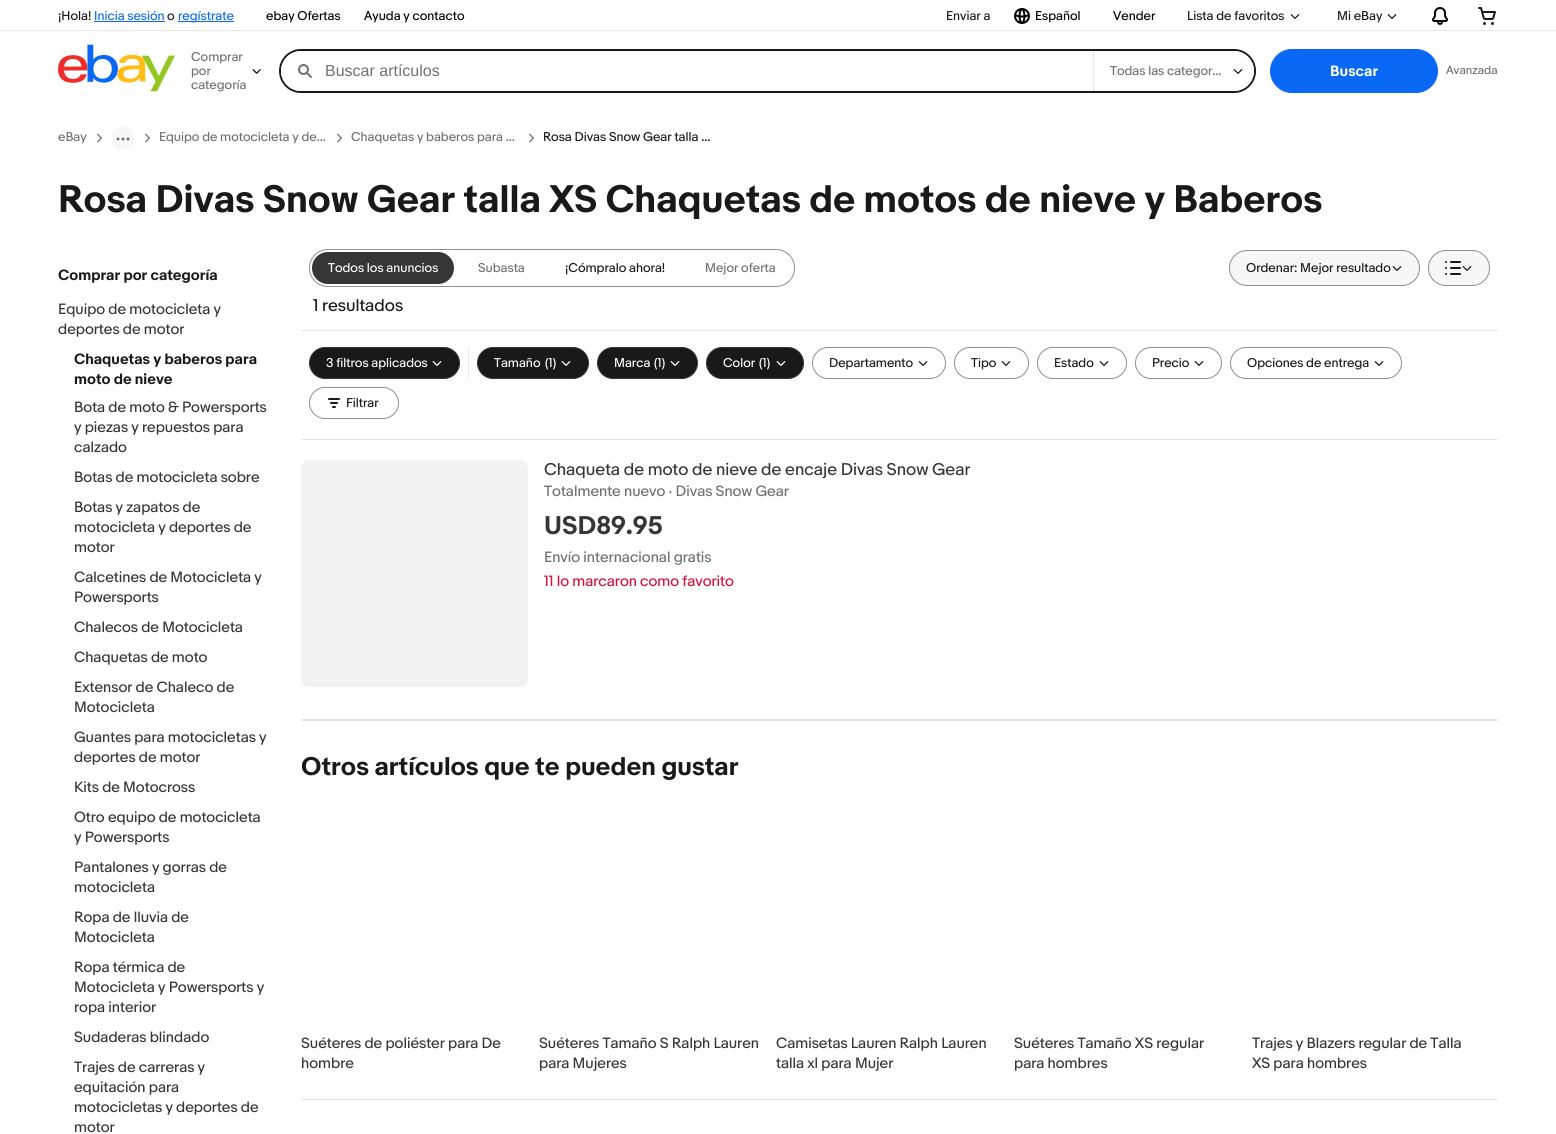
import math
import cairo

surface = cairo.ImageSurface(cairo.FORMAT_RGB24, 1556, 1134)
ctx = cairo.Context(surface)
options = cairo.FontOptions()
options.set_hint_metrics(cairo.HINT_METRICS_OFF)
options.set_hint_style(cairo.HINT_STYLE_NONE)
ctx.set_font_options(options)
ctx.set_miter_limit(4)


def set_color(code):
    ctx.set_source_rgb(*(v / 255 for v in bytes.fromhex(code[-6:])))


def draw_text(x, y, s, family, size, color, bold=False, italic=False):
    ctx.select_font_face(family, cairo.FONT_SLANT_ITALIC if italic else cairo.FONT_SLANT_NORMAL, cairo.FONT_WEIGHT_BOLD if bold else cairo.FONT_WEIGHT_NORMAL)
    ctx.set_font_size(size)
    set_color(color)
    ctx.move_to(x, y)
    ctx.show_text(s)


def fill_rect(x, y, w, h, color):
    set_color(color)
    ctx.rectangle(x, y, w, h)
    ctx.fill()


def rounded_rect(x, y, w, h, r):
    ctx.new_sub_path()
    for i, (u, v) in enumerate([(x + w - r, y + h - r), (x + r, y + h - r), (x + r, y + r), (x + w - r, y + r)]):
        ctx.arc(u, v, r, i * math.pi / 2, (i + 1) * math.pi / 2)
    ctx.close_path()


def draw_image(path, x, y, w, h):
    ctx.save()
    ctx.set_source_surface(cairo.ImageSurface.create_from_png(path), x, y)
    ctx.rectangle(x, y, w, h)
    ctx.fill()
    ctx.restore()


set_color("#ffffff")
ctx.paint()
draw_text(58, 20, "¡Hola!", "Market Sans", 12, "#191919")
draw_text(94, 20, "Inicia sesión", "Market Sans", 12, "#0968f6")
fill_rect(94, 21, 71, 1, "#0968f6")
draw_text(167, 20, "o", "Market Sans", 12, "#191919")
fill_rect(178, 21, 56, 1, "#0968f6")
draw_text(178, 20, "regístrate", "Market Sans", 12, "#0968f6")
draw_text(266, 20, "ebay Ofertas", "Market Sans", 12, "#000000")
draw_text(364, 20, "Ayuda y contacto", "Market Sans", 12, "#000000")
draw_text(946, 20, "Enviar a", "Market Sans", 12, "#191919")
draw_image("assets/img1.png", 1014, 8, 16, 16)
draw_text(1035, 20, "Español", "Market Sans", 12, "#000000")
draw_text(1113, 20, "Vender", "Market Sans", 12, "#000000")
draw_text(1187, 20, "Lista de favoritos", "Market Sans", 12, "#191919")
draw_image("assets/img2.png", 1290, 14, 10, 5)
draw_text(1337, 20, "Mi eBay", "Market Sans", 12, "#191919")
draw_image("assets/img2.png", 1387, 14, 10, 5)
draw_image("assets/img3.png", 1432, 7, 16, 18)
draw_image("assets/img4.png", 1478, 7, 18, 18)
draw_image("assets/img5.png", 58, 44, 117, 48)
draw_text(191, 61, "Comprar", "Market Sans", 12, "#707070")
draw_text(191, 75, "por", "Market Sans", 12, "#707070")
draw_text(191, 89, "categoría", "Market Sans", 12, "#707070")
draw_image("assets/img6.png", 252, 69, 9, 5)
rounded_rect(280, 50, 975, 42, 21)
set_color("#191919")
ctx.stroke()
fill_rect(1093, 51, 1, 40, "#e5e5e5")
set_color("#ffffff")
ctx.new_path()
ctx.move_to(301, 51)
ctx.line_to(1093, 51)
ctx.line_to(1093, 91)
ctx.line_to(301, 91)
ctx.curve_to(290, 91, 281, 82, 281, 71)
ctx.curve_to(281, 60, 290, 51, 301, 51)
ctx.close_path()
ctx.fill()
draw_image("assets/img7.png", 298, 64, 14, 14)
draw_text(325, 76, "Buscar artículos", "Liberation Sans", 16, "#707070")
set_color("#ffffff")
ctx.new_path()
ctx.move_to(1094, 51)
ctx.line_to(1234, 51)
ctx.curve_to(1245, 51, 1254, 60, 1254, 71)
ctx.curve_to(1254, 82, 1245, 91, 1234, 91)
ctx.line_to(1094, 91)
ctx.close_path()
ctx.fill()
draw_image("assets/img2.png", 1233, 69, 10, 5)
draw_text(1110, 75, "Todas las categor…", "Market Sans", 12, "#707070")
set_color("#0968f6")
rounded_rect(1270.5, 49.5, 167, 43, 21.5)
ctx.fill_preserve()
ctx.set_line_width(1)
ctx.stroke()
draw_text(1330, 76, "Buscar", "Market Sans", 14, "#ffffff", bold=True)
draw_text(1446, 74, "Avanzada", "Market Sans", 11, "#707070")
draw_text(58, 141, "eBay", "Market Sans", 12, "#707070")
draw_image("assets/img8.png", 97, 133, 5, 10)
set_color("#f7f7f7")
ctx.arc(123, 138, 12, 0, 2 * math.pi)
ctx.fill()
draw_image("assets/img9.png", 116, 137, 14, 4)
draw_image("assets/img8.png", 145, 133, 5, 10)
draw_text(159, 141, "Equipo de motocicleta y de…", "Market Sans", 12, "#707070")
draw_image("assets/img8.png", 337, 133, 5, 10)
draw_text(351, 141, "Chaquetas y baberos para …", "Market Sans", 12, "#707070")
draw_image("assets/img8.png", 529, 133, 5, 10)
draw_text(543, 141, "Rosa Divas Snow Gear talla …", "Market Sans", 12, "#191919")
draw_text(58, 212, "Rosa Divas Snow Gear talla XS Chaquetas de motos de nieve y Baberos", "Market Sans", 36, "#191919", bold=True)
draw_text(58, 280, "Comprar por categoría", "Market Sans", 14, "#191919", bold=True)
draw_text(58, 314, "Equipo de motocicleta y", "Market Sans", 14, "#363636")
draw_text(58, 334, "deportes de motor", "Market Sans", 14, "#363636")
draw_text(74, 364, "Chaquetas y baberos para", "Market Sans", 14, "#191919", bold=True)
draw_text(74, 384, "moto de nieve", "Market Sans", 14, "#191919", bold=True)
draw_text(74, 412, "Bota de moto & Powersports", "Market Sans", 14, "#363636")
draw_text(74, 432, "y piezas y repuestos para", "Market Sans", 14, "#363636")
draw_text(74, 452, "calzado", "Market Sans", 14, "#363636")
draw_text(74, 482, "Botas de motocicleta sobre", "Market Sans", 14, "#363636")
draw_text(74, 512, "Botas y zapatos de", "Market Sans", 14, "#363636")
draw_text(74, 532, "motocicleta y deportes de", "Market Sans", 14, "#363636")
draw_text(74, 552, "motor", "Market Sans", 14, "#363636")
draw_text(74, 582, "Calcetines de Motocicleta y", "Market Sans", 14, "#363636")
draw_text(74, 602, "Powersports", "Market Sans", 14, "#363636")
draw_text(74, 632, "Chalecos de Motocicleta", "Market Sans", 14, "#363636")
draw_text(74, 662, "Chaquetas de moto", "Market Sans", 14, "#363636")
draw_text(74, 692, "Extensor de Chaleco de", "Market Sans", 14, "#363636")
draw_text(74, 712, "Motocicleta", "Market Sans", 14, "#363636")
draw_text(74, 742, "Guantes para motocicletas y", "Market Sans", 14, "#363636")
draw_text(74, 762, "deportes de motor", "Market Sans", 14, "#363636")
draw_text(74, 792, "Kits de Motocross", "Market Sans", 14, "#363636")
draw_text(74, 822, "Otro equipo de motocicleta", "Market Sans", 14, "#363636")
draw_text(74, 842, "y Powersports", "Market Sans", 14, "#363636")
draw_text(74, 872, "Pantalones y gorras de", "Market Sans", 14, "#363636")
draw_text(74, 892, "motocicleta", "Market Sans", 14, "#363636")
draw_text(74, 922, "Ropa de lluvia de", "Market Sans", 14, "#363636")
draw_text(74, 942, "Motocicleta", "Market Sans", 14, "#363636")
draw_text(74, 972, "Ropa térmica de", "Market Sans", 14, "#363636")
draw_text(74, 992, "Motocicleta y Powersports y", "Market Sans", 14, "#363636")
draw_text(74, 1012, "ropa interior", "Market Sans", 14, "#363636")
draw_text(74, 1042, "Sudaderas blindado", "Market Sans", 14, "#363636")
draw_text(74, 1072, "Trajes de carreras y", "Market Sans", 14, "#363636")
draw_text(74, 1092, "equitación para", "Market Sans", 14, "#363636")
draw_text(74, 1112, "motocicletas y deportes de", "Market Sans", 14, "#363636")
draw_text(74, 1132, "motor", "Market Sans", 14, "#363636")
fill_rect(301, 330, 1197, 1, "#e5e5e5")
rounded_rect(309.5, 249.5, 485, 37, 18.5)
set_color("#8f8f8f")
ctx.stroke()
set_color("#363636")
rounded_rect(312, 252, 142, 32, 16)
ctx.fill()
draw_text(328, 272, "Todos los anuncios", "Market Sans", 12, "#ffffff")
draw_text(478, 272, "Subasta", "Market Sans", 12, "#707070")
draw_text(565, 272, "¡Cómpralo ahora!", "Market Sans", 12, "#191919")
draw_text(705, 272, "Mejor oferta", "Market Sans", 12, "#707070")
set_color("#f7f7f7")
rounded_rect(1229.5, 250.5, 190, 35, 17.5)
ctx.fill_preserve()
set_color("#8f8f8f")
ctx.stroke()
draw_text(1246, 272, "Ordenar: Mejor resultado", "Market Sans", 12, "#191919")
draw_image("assets/img10.png", 1392, 266, 10, 5)
set_color("#f7f7f7")
rounded_rect(1428.5, 250.5, 61, 35, 17.5)
ctx.fill_preserve()
set_color("#8f8f8f")
ctx.stroke()
draw_image("assets/img11.png", 1445, 261, 16, 14)
draw_image("assets/img10.png", 1462, 266, 10, 5)
draw_text(313, 311, "1 resultados", "Market Sans", 16, "#191919")
fill_rect(301, 439, 1197, 1, "#e5e5e5")
fill_rect(468, 347, 1, 32, "#e5e5e5")
set_color("#191919")
rounded_rect(309.5, 347.5, 150, 31, 15.5)
ctx.fill_preserve()
set_color("#363636")
ctx.stroke()
draw_text(326, 367, "3 filtros aplicados", "Market Sans", 12, "#ffffff")
draw_image("assets/img12.png", 432, 361, 10, 5)
set_color("#191919")
rounded_rect(477.5, 347.5, 111, 31, 15.5)
ctx.fill_preserve()
set_color("#363636")
ctx.stroke()
draw_text(494, 367, "Tamaño", "Market Sans", 12, "#ffffff")
draw_text(545, 367, "(1)", "Market Sans", 12, "#ffffff")
draw_image("assets/img12.png", 561, 361, 10, 5)
set_color("#191919")
rounded_rect(597.5, 347.5, 100, 31, 15.5)
ctx.fill_preserve()
set_color("#363636")
ctx.stroke()
draw_text(614, 367, "Marca", "Market Sans", 12, "#ffffff")
draw_text(654, 367, "(1)", "Market Sans", 12, "#ffffff")
draw_image("assets/img12.png", 670, 361, 10, 5)
set_color("#191919")
rounded_rect(706.5, 347.5, 97, 31, 15.5)
ctx.fill_preserve()
set_color("#363636")
ctx.stroke()
draw_text(723, 367, "Color", "Market Sans", 12, "#ffffff")
draw_text(759, 367, "(1)", "Market Sans", 12, "#ffffff")
draw_image("assets/img12.png", 776, 361, 10, 5)
rounded_rect(812.5, 347.5, 133, 31, 15.5)
set_color("#8f8f8f")
ctx.stroke()
draw_text(829, 367, "Departamento", "Market Sans", 12, "#191919")
draw_image("assets/img2.png", 918, 361, 10, 5)
rounded_rect(954.5, 347.5, 74, 31, 15.5)
set_color("#8f8f8f")
ctx.stroke()
draw_text(971, 367, "Tipo", "Market Sans", 12, "#191919")
draw_image("assets/img2.png", 1001, 361, 10, 5)
rounded_rect(1037.5, 347.5, 89, 31, 15.5)
set_color("#8f8f8f")
ctx.stroke()
draw_text(1054, 367, "Estado", "Market Sans", 12, "#191919")
draw_image("assets/img2.png", 1099, 361, 10, 5)
rounded_rect(1135.5, 347.5, 86, 31, 15.5)
set_color("#8f8f8f")
ctx.stroke()
draw_text(1152, 367, "Precio", "Market Sans", 12, "#191919")
draw_image("assets/img2.png", 1194, 361, 10, 5)
rounded_rect(1230.5, 347.5, 171, 31, 15.5)
set_color("#8f8f8f")
ctx.stroke()
draw_text(1247, 367, "Opciones de entrega", "Market Sans", 12, "#191919")
draw_image("assets/img2.png", 1374, 361, 10, 5)
rounded_rect(309.5, 387.5, 89, 31, 15.5)
set_color("#8f8f8f")
ctx.stroke()
draw_image("assets/img13.png", 328, 398, 12, 10)
draw_text(346, 407, "Filtrar", "Market Sans", 12, "#191919")
fill_rect(301, 719, 1197, 2, "#e5e5e5")
set_color("#f2f2f2")
rounded_rect(301, 460, 227, 227, 8)
ctx.fill()
draw_text(544, 475, "Chaqueta de moto de nieve de encaje Divas Snow Gear", "Market Sans", 16, "#363636")
draw_text(544, 496, "Totalmente nuevo · Divas Snow Gear", "Market Sans", 14, "#707070")
draw_text(544, 534, "USD89.95", "Market Sans", 24, "#363636", bold=True)
draw_text(544, 562, "Envío internacional gratis", "Market Sans", 14, "#707070")
draw_text(544, 586, "11 lo marcaron como favorito", "Market Sans", 14, "#d70f38")
fill_rect(301, 1099, 1197, 1, "#e5e5e5")
draw_text(301, 775, "Otros artículos que te pueden gustar", "Market Sans", 24, "#191919", bold=True)
draw_text(301, 1048, "Suéteres de poliéster para De", "Market Sans", 14, "#363636")
draw_text(301, 1068, "hombre", "Market Sans", 14, "#363636")
draw_text(539, 1048, "Suéteres Tamaño S Ralph Lauren", "Market Sans", 14, "#363636")
draw_text(539, 1068, "para Mujeres", "Market Sans", 14, "#363636")
draw_text(776, 1048, "Camisetas Lauren Ralph Lauren", "Market Sans", 14, "#363636")
draw_text(776, 1068, "talla xl para Mujer", "Market Sans", 14, "#363636")
draw_text(1014, 1048, "Suéteres Tamaño XS regular", "Market Sans", 14, "#363636")
draw_text(1014, 1068, "para hombres", "Market Sans", 14, "#363636")
draw_text(1252, 1048, "Trajes y Blazers regular de Talla", "Market Sans", 14, "#363636")
draw_text(1252, 1068, "XS para hombres", "Market Sans", 14, "#363636")
fill_rect(0, 30, 1556, 1, "#e5e5e5")
surface.write_to_png("output.png")
